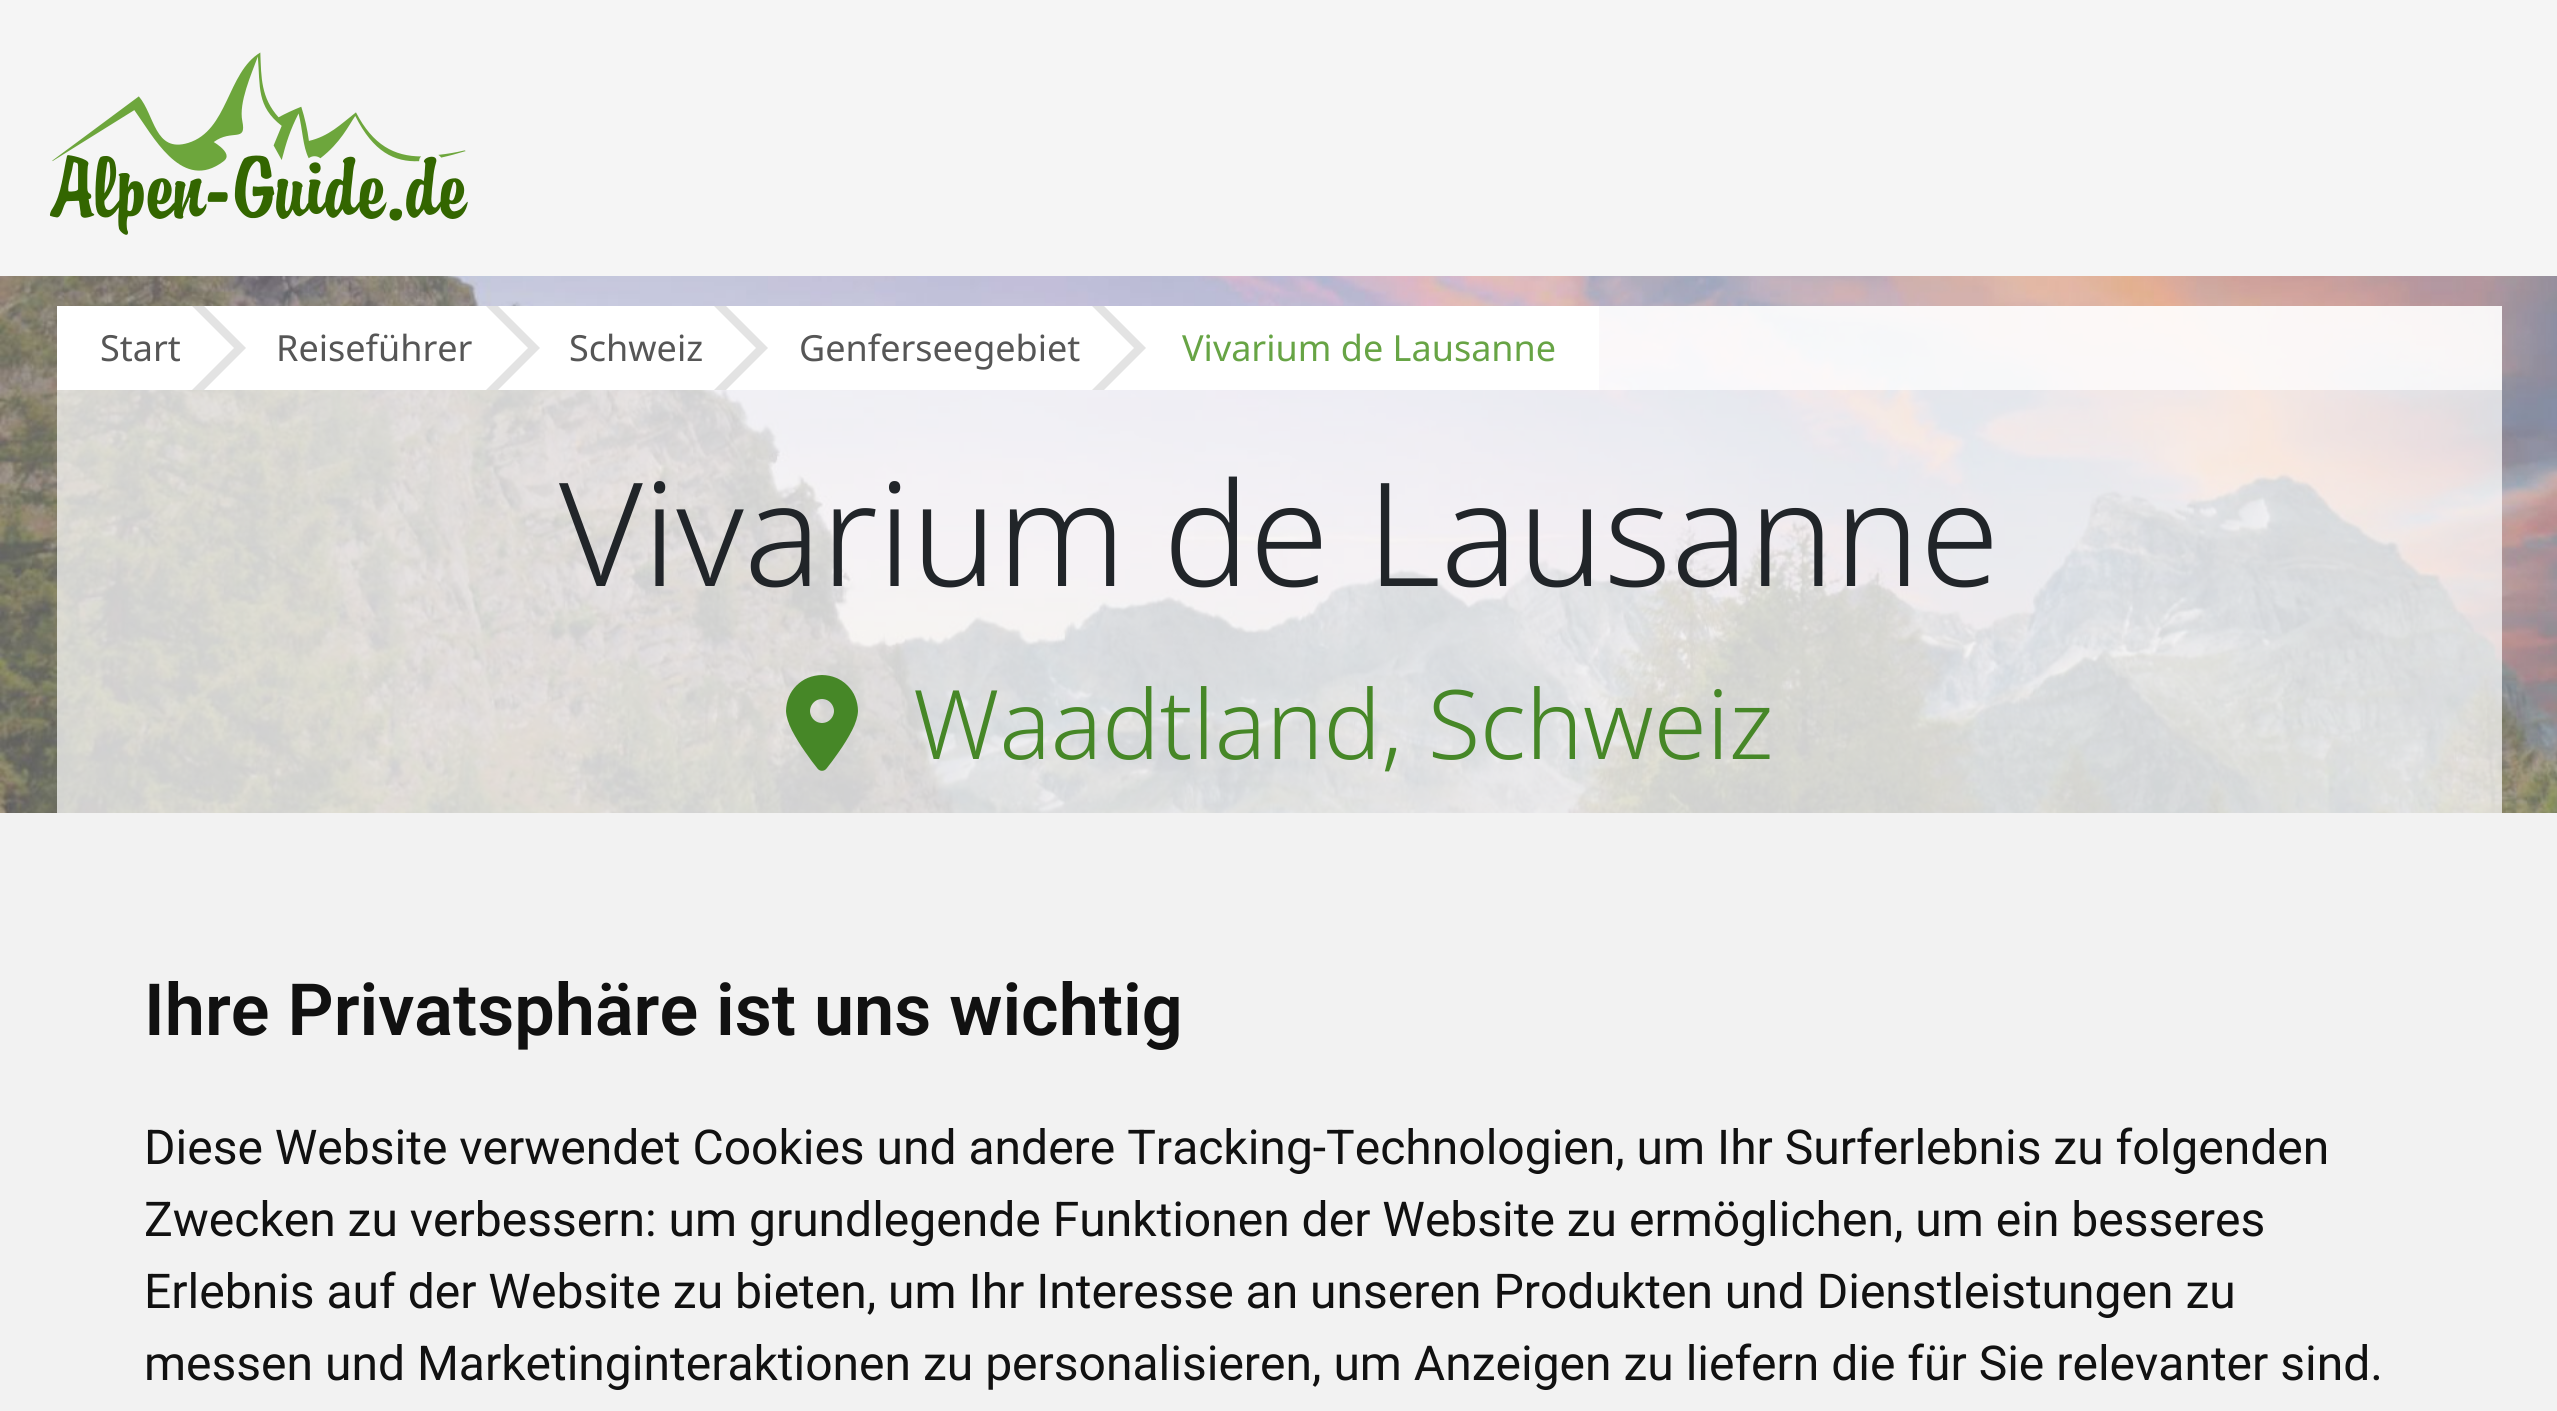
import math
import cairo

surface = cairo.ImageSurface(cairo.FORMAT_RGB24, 2557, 1411)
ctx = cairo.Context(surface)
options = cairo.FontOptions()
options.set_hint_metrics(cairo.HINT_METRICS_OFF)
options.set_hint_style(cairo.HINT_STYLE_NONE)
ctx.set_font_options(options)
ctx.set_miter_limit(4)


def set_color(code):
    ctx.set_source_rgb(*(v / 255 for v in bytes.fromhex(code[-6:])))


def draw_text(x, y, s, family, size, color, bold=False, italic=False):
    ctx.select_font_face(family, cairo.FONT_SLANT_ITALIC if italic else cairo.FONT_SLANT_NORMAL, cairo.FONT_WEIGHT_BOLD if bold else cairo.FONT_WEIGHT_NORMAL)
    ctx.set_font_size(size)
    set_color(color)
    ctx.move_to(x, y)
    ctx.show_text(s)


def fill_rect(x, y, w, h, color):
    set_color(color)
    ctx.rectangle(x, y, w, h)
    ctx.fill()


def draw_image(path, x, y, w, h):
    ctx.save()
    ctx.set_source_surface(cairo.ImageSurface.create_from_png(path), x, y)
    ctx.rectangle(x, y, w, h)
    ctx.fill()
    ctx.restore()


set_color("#ffffff")
ctx.paint()
draw_image("assets/img1.png", 0, 276, 2557, 537)
fill_rect(0, 0, 2557, 276, "#f5f5f5")
draw_image("assets/img2.png", 49, 52, 419, 183)
ctx.set_source_rgba(1, 1, 1, 0.7)
ctx.rectangle(57, 306, 2445, 507)
ctx.fill()
fill_rect(192, 306, 912, 84, "#e3e3e3")
fill_rect(57, 306, 135, 84, "#ffffff")
draw_text(100, 361, "Start", "Noto Sans", 36, "#565656")
fill_rect(204, 306, 282, 84, "#ffffff")
set_color("#e3e3e3")
ctx.new_path()
ctx.move_to(204, 390)
ctx.line_to(204, 306)
ctx.line_to(246, 348)
ctx.close_path()
ctx.fill()
set_color("#ffffff")
ctx.new_path()
ctx.move_to(192, 390)
ctx.line_to(192, 306)
ctx.line_to(234, 348)
ctx.close_path()
ctx.fill()
draw_text(276, 361, "Reiseführer", "Noto Sans", 36, "#565656")
fill_rect(498, 306, 216, 84, "#ffffff")
set_color("#e3e3e3")
ctx.new_path()
ctx.move_to(498, 390)
ctx.line_to(498, 306)
ctx.line_to(540, 348)
ctx.close_path()
ctx.fill()
set_color("#ffffff")
ctx.new_path()
ctx.move_to(486, 390)
ctx.line_to(486, 306)
ctx.line_to(528, 348)
ctx.close_path()
ctx.fill()
draw_text(569, 361, "Schweiz", "Noto Sans", 36, "#565656")
fill_rect(726, 306, 366, 84, "#ffffff")
set_color("#e3e3e3")
ctx.new_path()
ctx.move_to(726, 390)
ctx.line_to(726, 306)
ctx.line_to(768, 348)
ctx.close_path()
ctx.fill()
set_color("#ffffff")
ctx.new_path()
ctx.move_to(714, 390)
ctx.line_to(714, 306)
ctx.line_to(756, 348)
ctx.close_path()
ctx.fill()
draw_text(799, 361, "Genferseegebiet", "Noto Sans", 36, "#565656")
fill_rect(1104, 306, 495, 84, "#ffffff")
set_color("#e3e3e3")
ctx.new_path()
ctx.move_to(1104, 390)
ctx.line_to(1104, 306)
ctx.line_to(1146, 348)
ctx.close_path()
ctx.fill()
set_color("#ffffff")
ctx.new_path()
ctx.move_to(1092, 390)
ctx.line_to(1092, 306)
ctx.line_to(1134, 348)
ctx.close_path()
ctx.fill()
draw_text(1182, 361, "Vivarium de Lausanne", "Noto Sans", 36, "#67a445")
ctx.set_source_rgba(1, 1, 1, 0.7)
ctx.rectangle(1599, 306, 903, 84)
ctx.fill()
draw_text(559, 586, "Vivarium de Lausanne", "Noto Sans Light", 144, "#212529")
draw_image("assets/img3.png", 786, 675, 72, 96)
draw_text(913, 759, "Waadtland, Schweiz", "Noto Sans Light", 96, "#468727")
fill_rect(0, 813, 2557, 598, "#f2f2f2")
draw_text(144, 1035, "Ihre Privatsphäre ist uns wichtig", "Roboto SemiBold", 72, "#111111")
draw_text(144, 1164, "Diese Website verwendet Cookies und andere Tracking-Technologien, um Ihr Surferlebnis zu folgenden", "Roboto", 48, "#111111")
draw_text(144, 1236, "Zwecken zu verbessern: um grundlegende Funktionen der Website zu ermöglichen, um ein besseres", "Roboto", 48, "#111111")
draw_text(144, 1308, "Erlebnis auf der Website zu bieten, um Ihr Interesse an unseren Produkten und Dienstleistungen zu", "Roboto", 48, "#111111")
draw_text(144, 1380, "messen und Marketinginteraktionen zu personalisieren, um Anzeigen zu liefern die für Sie relevanter sind.", "Roboto", 48, "#111111")
surface.write_to_png("output.png")
